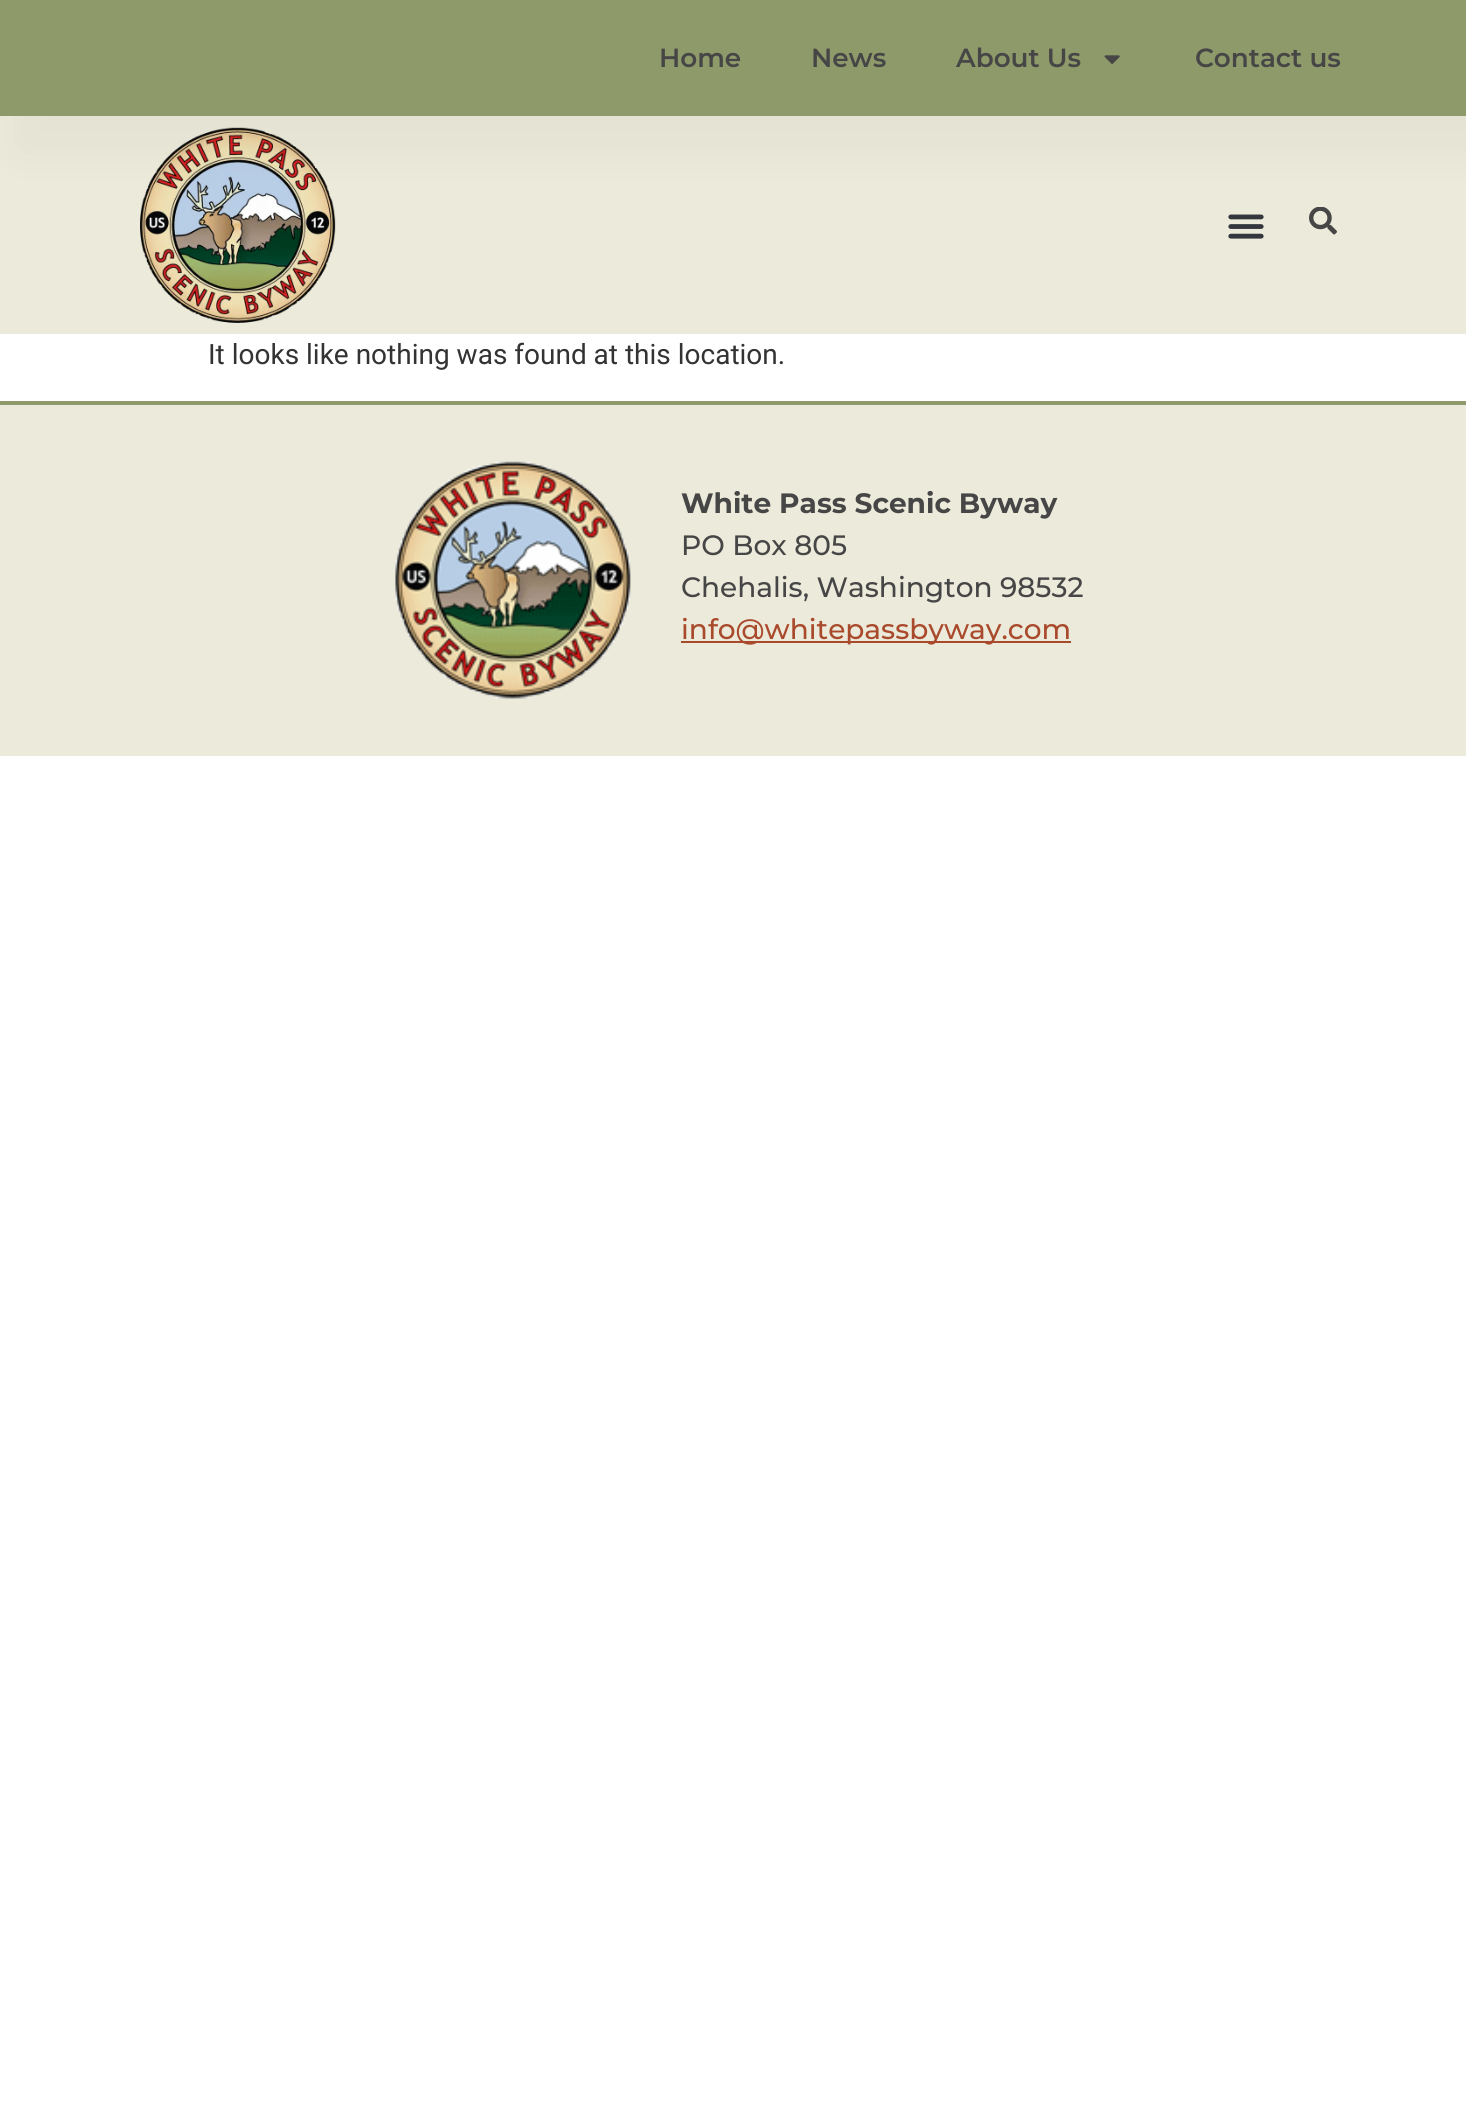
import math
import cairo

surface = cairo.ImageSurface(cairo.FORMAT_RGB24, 1466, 2104)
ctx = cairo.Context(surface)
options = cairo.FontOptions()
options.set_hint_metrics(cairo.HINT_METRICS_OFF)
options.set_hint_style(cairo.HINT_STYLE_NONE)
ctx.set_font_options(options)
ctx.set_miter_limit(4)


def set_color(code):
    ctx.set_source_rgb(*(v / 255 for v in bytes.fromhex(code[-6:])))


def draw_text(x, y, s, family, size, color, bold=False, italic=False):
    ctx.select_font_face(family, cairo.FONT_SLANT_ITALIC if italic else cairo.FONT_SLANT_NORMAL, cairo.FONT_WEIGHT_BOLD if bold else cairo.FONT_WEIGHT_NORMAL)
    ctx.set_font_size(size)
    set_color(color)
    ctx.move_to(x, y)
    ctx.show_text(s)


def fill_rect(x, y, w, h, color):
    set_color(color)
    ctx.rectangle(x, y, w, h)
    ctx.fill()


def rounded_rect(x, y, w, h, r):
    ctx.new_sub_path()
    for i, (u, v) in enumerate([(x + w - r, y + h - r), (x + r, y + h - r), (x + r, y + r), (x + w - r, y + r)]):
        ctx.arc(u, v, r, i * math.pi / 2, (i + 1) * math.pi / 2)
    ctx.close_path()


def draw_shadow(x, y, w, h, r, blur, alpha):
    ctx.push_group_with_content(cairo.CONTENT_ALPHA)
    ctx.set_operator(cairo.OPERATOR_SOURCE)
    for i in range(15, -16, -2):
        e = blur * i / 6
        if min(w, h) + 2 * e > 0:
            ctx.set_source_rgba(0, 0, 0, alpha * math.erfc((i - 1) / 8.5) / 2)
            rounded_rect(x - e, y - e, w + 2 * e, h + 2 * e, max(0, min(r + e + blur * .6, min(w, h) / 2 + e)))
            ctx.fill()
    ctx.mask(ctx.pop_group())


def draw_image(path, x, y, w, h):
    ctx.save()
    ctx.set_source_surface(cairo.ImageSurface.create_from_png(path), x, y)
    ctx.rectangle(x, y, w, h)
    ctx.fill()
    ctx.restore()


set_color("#ffffff")
ctx.paint()
fill_rect(0, 116, 1466, 218, "#eceada")
draw_image("assets/img2.png", 140, 127, 196, 196)
draw_image("assets/img3.png", 1228, 214, 36, 25)
draw_image("assets/img4.png", 1309, 207, 28, 28)
set_color("#000000")
draw_shadow(18, 18, 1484, 133, 0, 26, 0.04)
fill_rect(0, 0, 1466, 116, "#8f9a6a")
draw_text(659, 67, "Home", "Montserrat SemiBold", 26.25, "#464646")
draw_text(811, 67, "News", "Montserrat SemiBold", 26.25, "#464646")
draw_text(956, 67, "About Us", "Montserrat SemiBold", 26.25, "#464646")
draw_image("assets/img1.png", 1104, 55, 16, 9)
draw_text(1195, 67, "Contact us", "Montserrat SemiBold", 26.25, "#464646")
draw_text(208, 364, "It looks like nothing was found at this location.", "Roboto", 28, "#333333")
fill_rect(0, 405, 1466, 351, "#eceada")
fill_rect(0, 401, 1466, 4, "#8f9a6a")
draw_image("assets/img5.png", 395, 461, 236, 238)
draw_text(681, 513, "White Pass Scenic Byway", "Montserrat", 28, "#464646", bold=True)
draw_text(681, 555, "PO Box 805", "Montserrat Medium", 28, "#464646")
draw_text(681, 597, "Chehalis, Washington 98532", "Montserrat Medium", 28, "#464646")
fill_rect(681, 641, 390, 2, "#a94a2d")
draw_text(681, 639, "info@whitepassbyway.com", "Montserrat Medium", 28, "#a94a2d")
surface.write_to_png("output.png")
